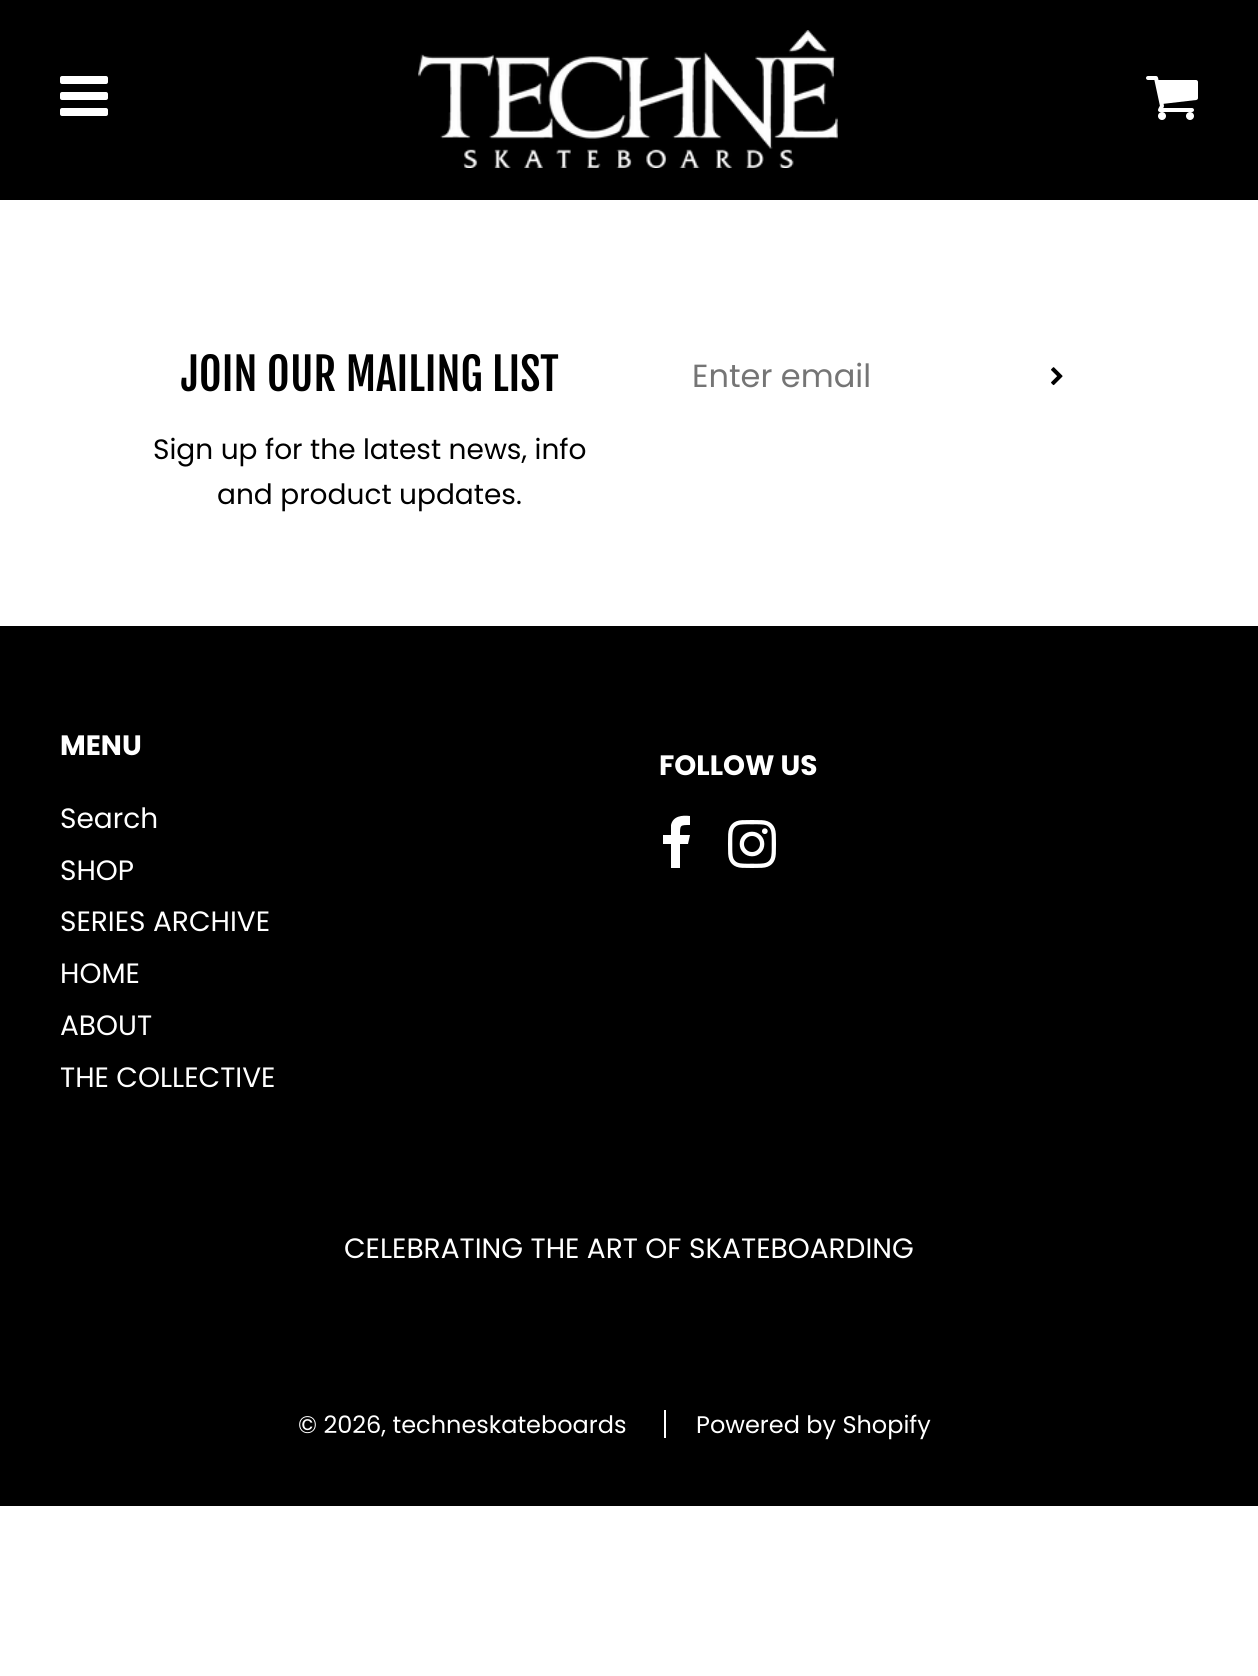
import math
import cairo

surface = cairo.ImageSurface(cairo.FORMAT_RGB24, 1258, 1676)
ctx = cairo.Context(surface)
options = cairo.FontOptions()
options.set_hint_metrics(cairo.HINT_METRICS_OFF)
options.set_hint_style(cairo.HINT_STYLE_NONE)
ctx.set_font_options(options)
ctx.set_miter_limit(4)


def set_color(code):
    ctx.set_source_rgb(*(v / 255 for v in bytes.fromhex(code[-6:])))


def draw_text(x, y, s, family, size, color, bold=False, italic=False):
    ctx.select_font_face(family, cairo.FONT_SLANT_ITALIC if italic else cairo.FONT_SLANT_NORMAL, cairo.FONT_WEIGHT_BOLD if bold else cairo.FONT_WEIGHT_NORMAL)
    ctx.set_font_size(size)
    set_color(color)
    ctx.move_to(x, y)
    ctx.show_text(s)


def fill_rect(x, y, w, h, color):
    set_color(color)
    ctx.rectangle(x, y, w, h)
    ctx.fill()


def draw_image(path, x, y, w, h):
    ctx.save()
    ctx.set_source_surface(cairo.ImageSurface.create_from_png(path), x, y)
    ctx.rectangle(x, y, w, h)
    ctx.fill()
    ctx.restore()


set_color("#ffffff")
ctx.paint()
fill_rect(0, 0, 1258, 1506, "#000000")
draw_image("assets/img1.png", 60, 76, 48, 40)
draw_image("assets/img2.png", 418, 30, 420, 138)
draw_image("assets/img3.png", 1146, 76, 52, 44)
fill_rect(0, 200, 1258, 426, "#ffffff")
draw_text(181, 391, "JOIN OUR MAILING LIST", "Fjalla One", 44, "#000000")
draw_text(153, 459, "Sign up for the latest news, info", "Poppins", 28, "#000000")
draw_text(217, 504, "and product updates.", "Poppins", 28, "#000000")
draw_text(692, 387, "Enter email", "Poppins", 32, "#757575")
draw_image("assets/img4.png", 1051, 367, 12, 19)
draw_text(60, 755, "MENU", "Poppins", 28, "#ffffff", bold=True)
draw_text(60, 828, "Search", "Poppins", 28, "#ffffff")
draw_text(60, 880, "SHOP", "Poppins", 28, "#ffffff")
draw_text(60, 931, "SERIES ARCHIVE", "Poppins", 28, "#ffffff")
draw_text(60, 983, "HOME", "Poppins", 28, "#ffffff")
draw_text(60, 1035, "ABOUT", "Poppins", 28, "#ffffff")
draw_text(60, 1087, "THE COLLECTIVE", "Poppins", 28, "#ffffff")
draw_text(659, 775, "FOLLOW US", "Poppins", 28, "#ffffff", bold=True)
ctx.new_path()
ctx.move_to(690, 816)
ctx.line_to(690, 825)
ctx.curve_to(680, 825, 680, 825, 680, 835)
ctx.line_to(690, 835)
ctx.line_to(688, 844)
ctx.line_to(680, 844)
ctx.line_to(680, 868)
ctx.line_to(671, 868)
ctx.line_to(671, 844)
ctx.line_to(663, 844)
ctx.line_to(663, 835)
ctx.line_to(671, 835)
ctx.line_to(671, 825)
ctx.curve_to(673, 816, 682, 815, 690, 816)
ctx.close_path()
ctx.fill()
draw_image("assets/img5.png", 728, 820, 48, 48)
draw_text(344, 1258, "CELEBRATING THE ART OF SKATEBOARDING", "Poppins", 28, "#ffffff")
draw_text(298, 1433, "© 2026, techneskateboards", "Poppins", 24, "#ffffff")
fill_rect(664, 1410, 2, 28, "#ffffff")
draw_text(696, 1433, "Powered by Shopify", "Poppins", 24, "#ffffff")
surface.write_to_png("output.png")
